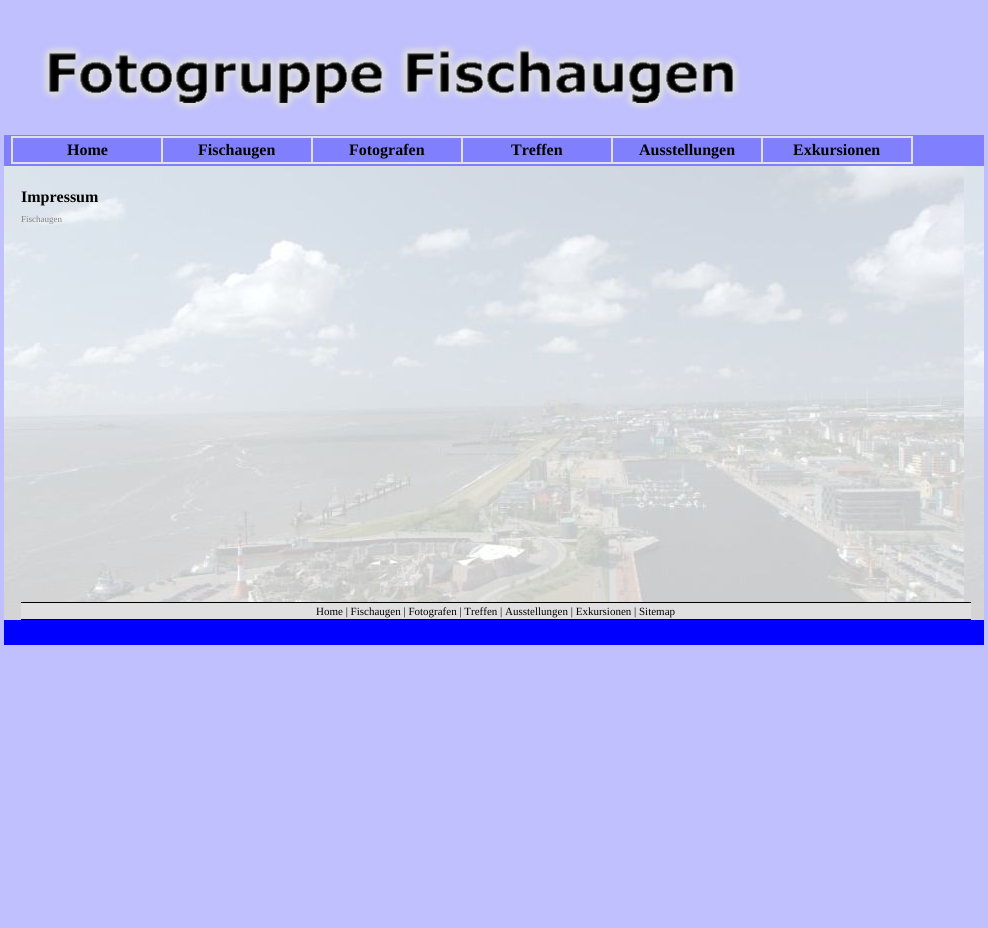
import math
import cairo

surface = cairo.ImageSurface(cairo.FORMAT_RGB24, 988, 928)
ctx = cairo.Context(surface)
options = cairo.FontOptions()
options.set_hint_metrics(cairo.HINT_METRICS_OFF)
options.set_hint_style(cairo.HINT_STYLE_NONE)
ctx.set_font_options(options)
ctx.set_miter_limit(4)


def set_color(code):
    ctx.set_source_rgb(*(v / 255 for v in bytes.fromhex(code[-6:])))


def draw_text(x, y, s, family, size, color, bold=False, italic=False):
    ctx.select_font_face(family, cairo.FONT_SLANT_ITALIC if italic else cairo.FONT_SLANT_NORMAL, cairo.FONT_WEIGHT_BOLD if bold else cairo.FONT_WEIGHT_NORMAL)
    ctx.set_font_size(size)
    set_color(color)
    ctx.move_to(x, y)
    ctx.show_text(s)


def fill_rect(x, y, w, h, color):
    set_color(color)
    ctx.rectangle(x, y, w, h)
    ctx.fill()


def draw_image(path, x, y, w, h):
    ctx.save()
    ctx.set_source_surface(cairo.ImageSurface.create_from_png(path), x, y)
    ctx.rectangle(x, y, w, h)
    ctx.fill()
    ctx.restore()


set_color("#c0c0ff")
ctx.paint()
draw_image("assets/img1.png", 40, 42, 702, 70)
draw_image("assets/img2.png", 4, 166, 980, 454)
fill_rect(4, 135, 980, 31, "#8080ff")
ctx.rectangle(12, 137, 150, 26)
set_color("#e0e0e0")
ctx.stroke()
draw_text(67, 155, "Home", "Liberation Serif", 16, "#000000", bold=True)
ctx.rectangle(162, 137, 150, 26)
set_color("#e0e0e0")
ctx.stroke()
draw_text(198, 155, "Fischaugen", "Liberation Serif", 16, "#000000", bold=True)
ctx.rectangle(312, 137, 150, 26)
set_color("#e0e0e0")
ctx.stroke()
draw_text(349, 155, "Fotografen", "Liberation Serif", 16, "#000000", bold=True)
ctx.rectangle(462, 137, 150, 26)
set_color("#e0e0e0")
ctx.stroke()
draw_text(511, 155, "Treffen", "Liberation Serif", 16, "#000000", bold=True)
ctx.rectangle(612, 137, 150, 26)
set_color("#e0e0e0")
ctx.stroke()
draw_text(639, 155, "Ausstellungen", "Liberation Serif", 16, "#000000", bold=True)
ctx.rectangle(762, 137, 150, 26)
set_color("#e0e0e0")
ctx.stroke()
draw_text(793, 155, "Exkursionen", "Liberation Serif", 16, "#000000", bold=True)
draw_text(21, 202, "Impressum", "Liberation Serif", 16, "#000000", bold=True)
draw_text(21, 222, "Fischaugen", "Liberation Serif", 9, "#808080")
fill_rect(21, 603, 950, 16, "#e0e0e0")
fill_rect(21, 602, 950, 1, "#000000")
fill_rect(21, 619, 950, 1, "#000000")
draw_text(316, 615, "Home | Fischaugen | Fotografen | Treffen | Ausstellungen | Exkursionen | Sitemap", "Liberation Serif", 11, "#000000")
fill_rect(4, 620, 980, 25, "#0000ff")
surface.write_to_png("output.png")
